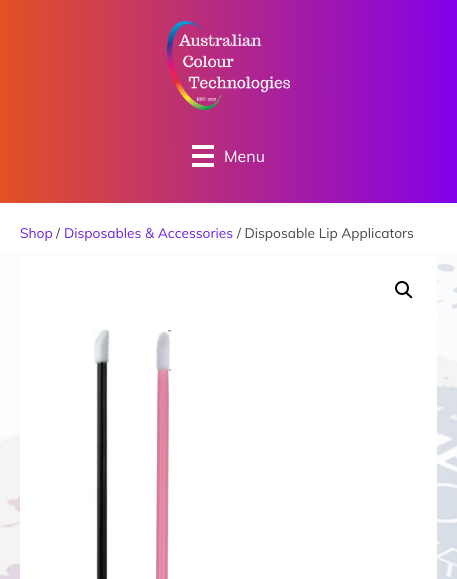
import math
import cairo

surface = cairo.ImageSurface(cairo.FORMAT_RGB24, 457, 579)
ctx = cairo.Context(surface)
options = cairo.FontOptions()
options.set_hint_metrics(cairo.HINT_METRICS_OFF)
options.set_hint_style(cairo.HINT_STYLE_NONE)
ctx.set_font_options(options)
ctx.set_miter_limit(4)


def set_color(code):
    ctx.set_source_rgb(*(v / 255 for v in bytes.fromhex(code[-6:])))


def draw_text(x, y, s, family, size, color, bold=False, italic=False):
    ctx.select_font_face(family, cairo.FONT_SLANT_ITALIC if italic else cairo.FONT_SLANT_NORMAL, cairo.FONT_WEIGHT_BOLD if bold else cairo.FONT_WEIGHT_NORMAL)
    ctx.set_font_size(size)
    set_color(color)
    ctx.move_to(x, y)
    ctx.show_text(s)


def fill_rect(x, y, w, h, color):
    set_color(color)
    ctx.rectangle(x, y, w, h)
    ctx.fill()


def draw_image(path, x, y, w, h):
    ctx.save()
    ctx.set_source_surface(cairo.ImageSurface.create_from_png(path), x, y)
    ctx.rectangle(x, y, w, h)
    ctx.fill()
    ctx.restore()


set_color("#ffffff")
ctx.paint()
gradient = cairo.LinearGradient(0, 102, 457, 101)
gradient.add_color_stop_rgba(0, 0.89, 0.318, 0.141, 1)
gradient.add_color_stop_rgba(1, 0.514, 0, 0.914, 1)
ctx.set_source(gradient)
ctx.rectangle(0, 0, 457, 203)
ctx.fill()
draw_image("assets/img1.png", 167, 21, 123, 89)
fill_rect(192, 145, 22, 4, "#ffffff")
fill_rect(192, 154, 22, 4, "#ffffff")
fill_rect(192, 163, 22, 4, "#ffffff")
draw_text(224, 162, "Menu", "Muli", 16, "#ffffff")
draw_image("assets/img2.png", 0, 251, 457, 328)
draw_text(20, 238, "Shop", "Muli", 13.75, "#6921dd")
draw_text(56, 238, "/", "Muli", 13.75, "#484848")
draw_text(64, 238, "Disposables & Accessories", "Muli", 13.75, "#6921dd")
draw_text(237, 238, "/ Disposable Lip Applicators", "Muli", 13.75, "#484848")
draw_image("assets/img3.png", 20, 257, 417, 322)
ctx.arc(402, 288, 6, 0, 2 * math.pi)
set_color("#000000")
ctx.stroke()
ctx.new_path()
ctx.move_to(406, 292.5)
ctx.curve_to(407.5, 291, 409, 294, 409.5, 294.5)
ctx.curve_to(410.5, 295, 413, 297, 412, 298)
ctx.curve_to(410.5, 299, 409, 296.5, 408.5, 296)
ctx.curve_to(407.5, 295.5, 405, 293.5, 406, 292.5)
ctx.close_path()
ctx.fill()
surface.write_to_png("output.png")
